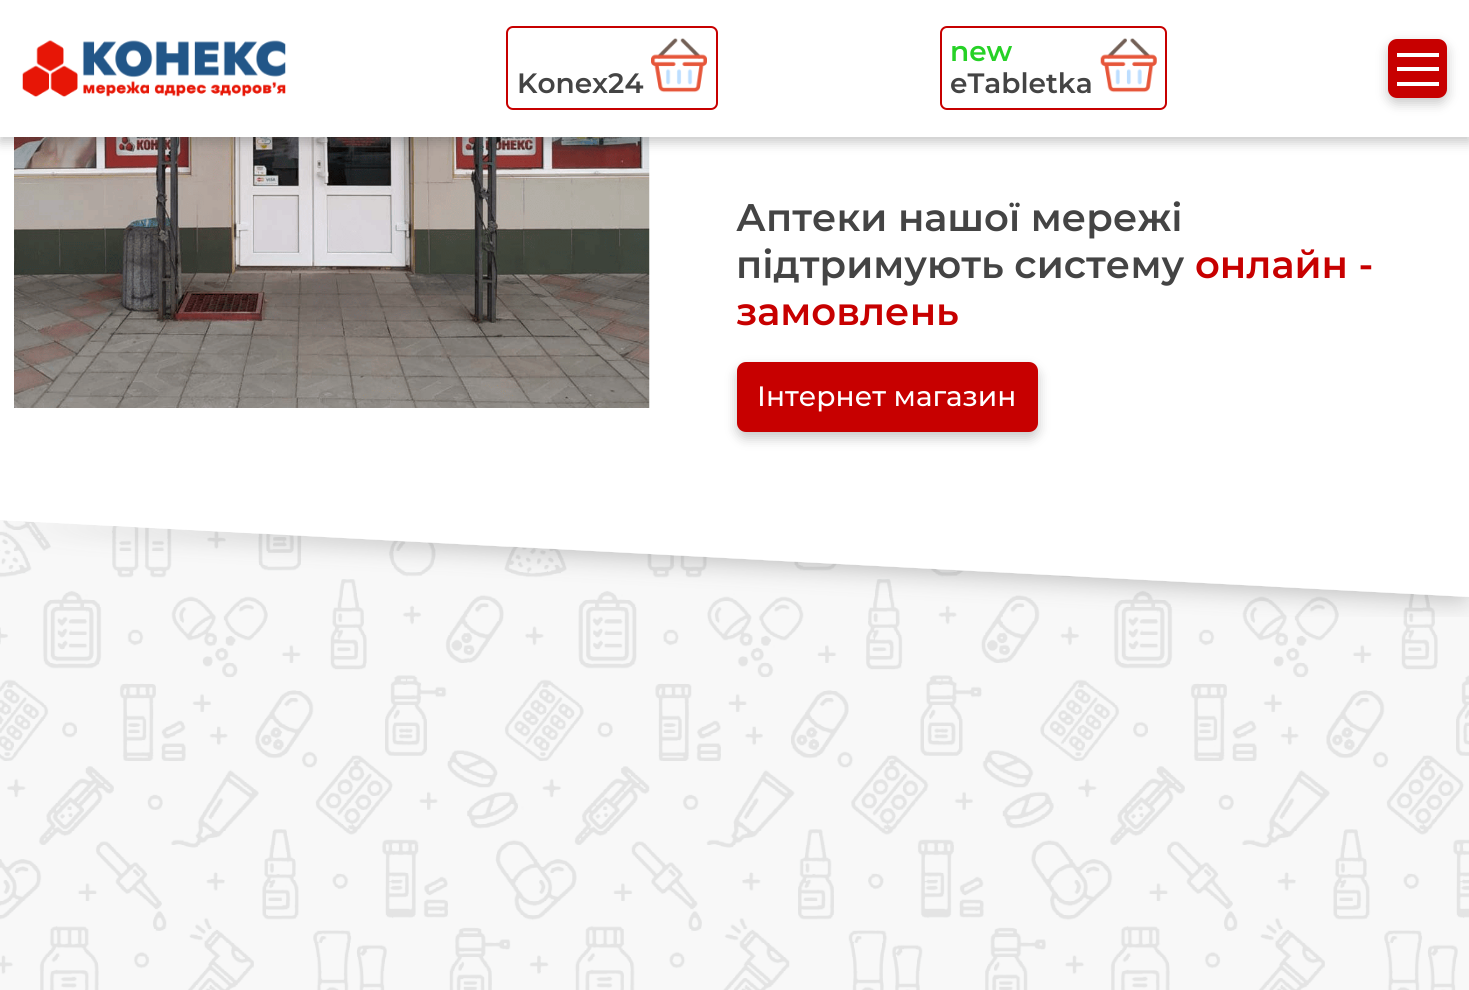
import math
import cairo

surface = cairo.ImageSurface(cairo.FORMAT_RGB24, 1469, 990)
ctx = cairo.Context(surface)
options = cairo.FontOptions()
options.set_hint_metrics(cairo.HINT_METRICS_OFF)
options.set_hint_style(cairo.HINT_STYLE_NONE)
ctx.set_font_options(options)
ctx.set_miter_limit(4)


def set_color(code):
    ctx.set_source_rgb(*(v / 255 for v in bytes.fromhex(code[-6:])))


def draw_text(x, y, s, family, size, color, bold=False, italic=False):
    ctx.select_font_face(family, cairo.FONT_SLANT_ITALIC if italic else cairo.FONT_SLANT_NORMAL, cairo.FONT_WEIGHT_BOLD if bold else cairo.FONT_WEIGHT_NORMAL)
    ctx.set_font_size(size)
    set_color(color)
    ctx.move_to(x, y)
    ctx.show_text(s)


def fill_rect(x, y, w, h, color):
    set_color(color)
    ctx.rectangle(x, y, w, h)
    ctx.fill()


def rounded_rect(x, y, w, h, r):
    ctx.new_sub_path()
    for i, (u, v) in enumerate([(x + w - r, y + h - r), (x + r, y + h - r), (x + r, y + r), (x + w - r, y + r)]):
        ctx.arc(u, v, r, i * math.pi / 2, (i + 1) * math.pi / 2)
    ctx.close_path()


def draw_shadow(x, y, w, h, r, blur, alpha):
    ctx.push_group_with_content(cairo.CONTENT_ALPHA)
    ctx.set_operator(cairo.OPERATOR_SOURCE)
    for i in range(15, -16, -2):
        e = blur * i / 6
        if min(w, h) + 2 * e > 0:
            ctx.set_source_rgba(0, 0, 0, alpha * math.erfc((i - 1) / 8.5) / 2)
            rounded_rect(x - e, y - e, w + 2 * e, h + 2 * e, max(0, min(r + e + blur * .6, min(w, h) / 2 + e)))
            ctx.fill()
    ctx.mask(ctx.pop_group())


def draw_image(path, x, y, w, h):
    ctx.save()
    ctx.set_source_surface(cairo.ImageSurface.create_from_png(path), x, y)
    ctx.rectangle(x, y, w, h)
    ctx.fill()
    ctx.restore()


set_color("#ffffff")
ctx.paint()
draw_image("assets/img5.png", 14, 137, 636, 271)
set_color("#444444")
draw_shadow(0, 5, 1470, 137, 0, 6, 0.3)
fill_rect(0, 0, 1469, 137, "#ffffff")
draw_image("assets/img1.png", 22, 40, 264, 57)
rounded_rect(507, 27, 210, 82, 6)
set_color("#c70000")
ctx.stroke()
draw_text(517, 93, "Konex24", "Montserrat SemiBold", 28, "#444444")
draw_image("assets/img2.png", 651, 38, 56, 55)
rounded_rect(941, 27, 225, 82, 6)
set_color("#c70000")
ctx.stroke()
draw_text(950, 61, "new", "Montserrat SemiBold", 28, "#26d126")
draw_text(950, 93, "eTabletka", "Montserrat SemiBold", 28, "#444444")
draw_image("assets/img3.png", 1100, 38, 57, 55)
set_color("#444444")
draw_shadow(1388, 44, 59, 59, 9, 6, 0.3)
set_color("#c70000")
rounded_rect(1388, 39, 59, 59, 9)
ctx.fill()
fill_rect(1397, 53, 42, 4, "#ffffff")
fill_rect(1397, 67, 42, 4, "#ffffff")
fill_rect(1397, 82, 42, 4, "#ffffff")
draw_image("assets/img4.png", 0, 520, 1469, 470)
draw_text(736, 231, "Аптеки нашої мережі", "Montserrat SemiBold", 38.5, "#444444")
draw_text(736, 278, "підтримують систему", "Montserrat SemiBold", 38.5, "#444444")
draw_text(1195, 278, "онлайн -", "Montserrat SemiBold", 38.5, "#c70000")
draw_text(736, 325, "замовлень", "Montserrat SemiBold", 38.5, "#c70000")
set_color("#444444")
draw_shadow(737, 368, 301, 70, 9, 6, 0.3)
set_color("#c70000")
rounded_rect(737, 362, 301, 70, 9)
ctx.fill()
draw_text(757, 406, "Інтернет магазин", "Montserrat Medium", 28, "#ffffff")
draw_image("assets/img6.png", 3, 520, 1466, 97)
surface.write_to_png("output.png")
